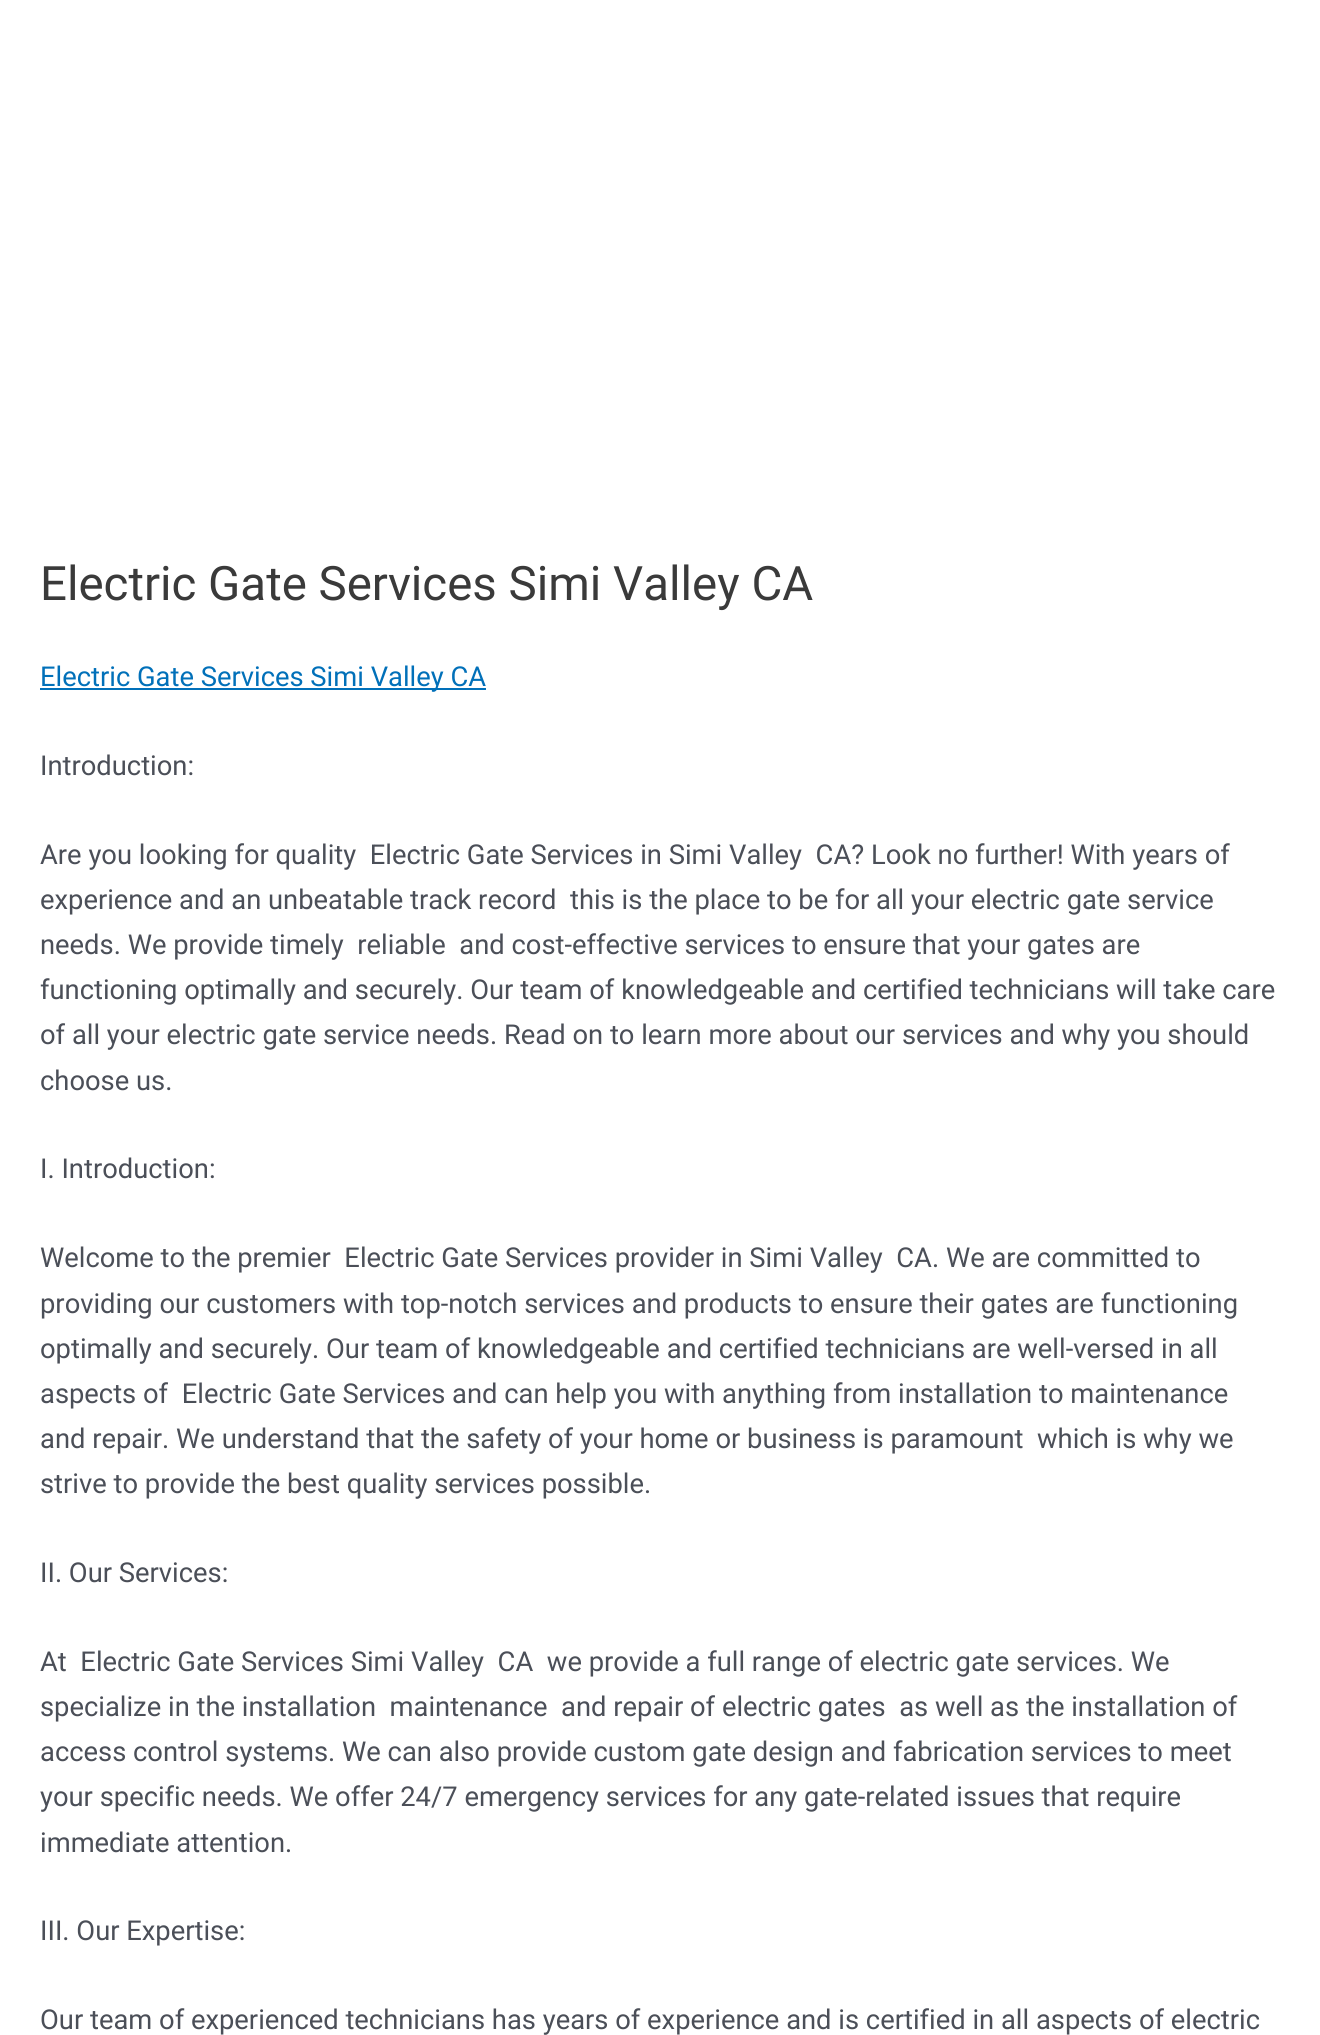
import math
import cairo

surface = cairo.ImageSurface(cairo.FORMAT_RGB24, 1320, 2035)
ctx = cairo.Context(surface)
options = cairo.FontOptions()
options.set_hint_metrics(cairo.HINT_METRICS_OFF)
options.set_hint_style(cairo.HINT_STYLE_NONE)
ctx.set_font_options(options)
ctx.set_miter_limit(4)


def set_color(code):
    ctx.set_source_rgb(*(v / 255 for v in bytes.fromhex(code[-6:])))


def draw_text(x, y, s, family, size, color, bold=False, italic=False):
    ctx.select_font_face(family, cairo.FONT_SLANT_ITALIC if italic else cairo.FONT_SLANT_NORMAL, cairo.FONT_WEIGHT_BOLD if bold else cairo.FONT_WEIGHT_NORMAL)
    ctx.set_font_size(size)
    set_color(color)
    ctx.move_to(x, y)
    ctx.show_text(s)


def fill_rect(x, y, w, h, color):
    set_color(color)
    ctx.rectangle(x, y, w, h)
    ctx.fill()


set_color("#ffffff")
ctx.paint()
draw_text(40, 600, "Electric Gate Services Simi Valley CA", "Roboto", 47.4, "#3a3a3a")
fill_rect(40, 688, 446, 2, "#0170b9")
draw_text(40, 686, "Electric Gate Services Simi Valley CA", "Roboto", 27.35, "#0170b9")
draw_text(40, 775, "Introduction:", "Roboto", 27.35, "#4b4f58")
draw_text(40, 864, "Are you looking for quality  Electric Gate Services in Simi Valley  CA? Look no further! With years of", "Roboto", 27.35, "#4b4f58")
draw_text(40, 909, "experience and an unbeatable track record  this is the place to be for all your electric gate service", "Roboto", 27.35, "#4b4f58")
draw_text(40, 954, "needs. We provide timely  reliable  and cost-effective services to ensure that your gates are", "Roboto", 27.35, "#4b4f58")
draw_text(40, 999, "functioning optimally and securely. Our team of knowledgeable and certified technicians will take care", "Roboto", 27.35, "#4b4f58")
draw_text(40, 1044, "of all your electric gate service needs. Read on to learn more about our services and why you should", "Roboto", 27.35, "#4b4f58")
draw_text(40, 1090, "choose us.", "Roboto", 27.35, "#4b4f58")
draw_text(40, 1178, "I. Introduction:", "Roboto", 27.35, "#4b4f58")
draw_text(40, 1267, "Welcome to the premier  Electric Gate Services provider in Simi Valley  CA. We are committed to", "Roboto", 27.35, "#4b4f58")
draw_text(40, 1313, "providing our customers with top-notch services and products to ensure their gates are functioning", "Roboto", 27.35, "#4b4f58")
draw_text(40, 1358, "optimally and securely. Our team of knowledgeable and certified technicians are well-versed in all", "Roboto", 27.35, "#4b4f58")
draw_text(40, 1403, "aspects of  Electric Gate Services and can help you with anything from installation to maintenance", "Roboto", 27.35, "#4b4f58")
draw_text(40, 1448, "and repair. We understand that the safety of your home or business is paramount  which is why we", "Roboto", 27.35, "#4b4f58")
draw_text(40, 1493, "strive to provide the best quality services possible.", "Roboto", 27.35, "#4b4f58")
draw_text(40, 1582, "II. Our Services:", "Roboto", 27.35, "#4b4f58")
draw_text(40, 1671, "At  Electric Gate Services Simi Valley  CA  we provide a full range of electric gate services. We", "Roboto", 27.35, "#4b4f58")
draw_text(40, 1716, "specialize in the installation  maintenance  and repair of electric gates  as well as the installation of", "Roboto", 27.35, "#4b4f58")
draw_text(40, 1761, "access control systems. We can also provide custom gate design and fabrication services to meet", "Roboto", 27.35, "#4b4f58")
draw_text(40, 1806, "your specific needs. We offer 24/7 emergency services for any gate-related issues that require", "Roboto", 27.35, "#4b4f58")
draw_text(40, 1852, "immediate attention.", "Roboto", 27.35, "#4b4f58")
draw_text(40, 1940, "III. Our Expertise:", "Roboto", 27.35, "#4b4f58")
draw_text(40, 2029, "Our team of experienced technicians has years of experience and is certified in all aspects of electric", "Roboto", 27.35, "#4b4f58")
surface.write_to_png("output.png")
